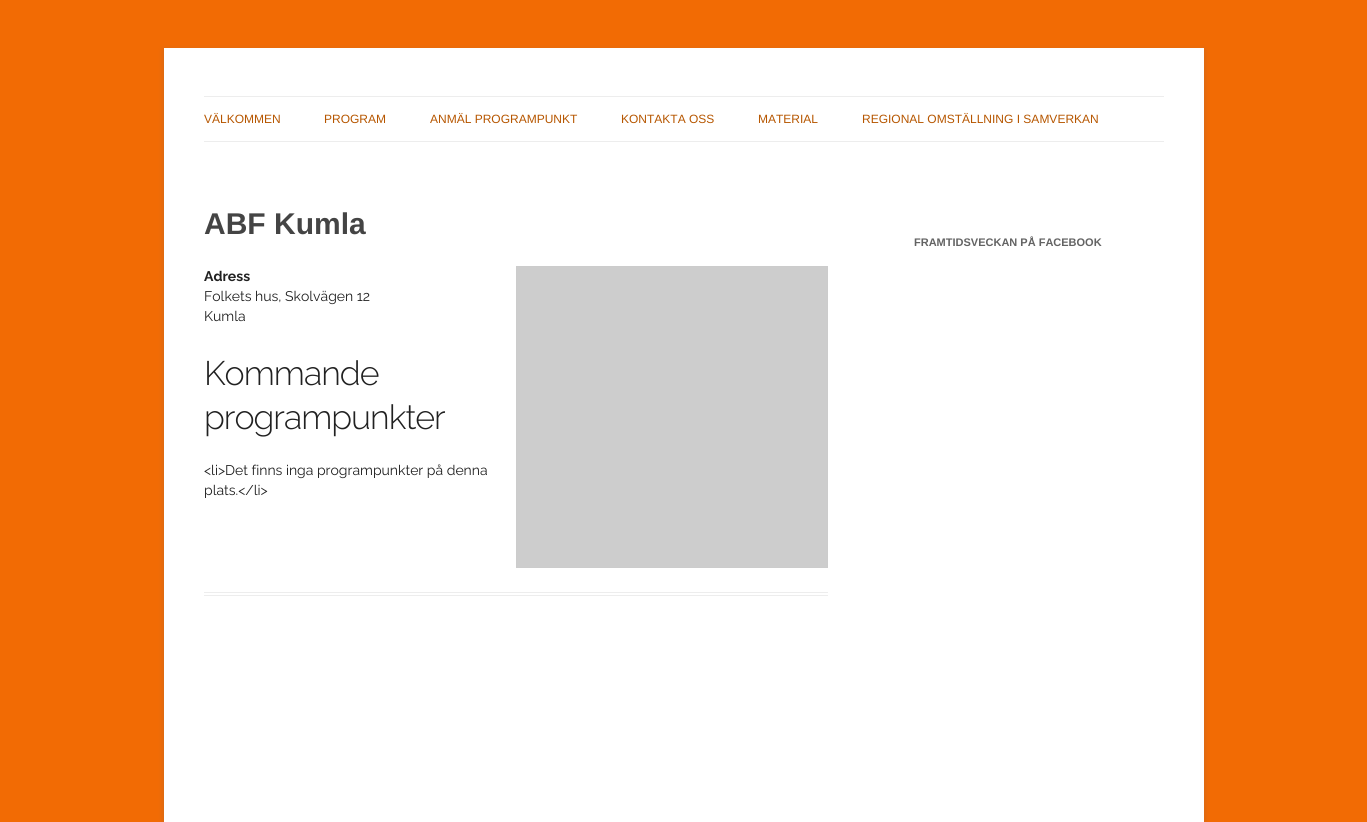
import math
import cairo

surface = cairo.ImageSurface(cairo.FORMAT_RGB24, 1367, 822)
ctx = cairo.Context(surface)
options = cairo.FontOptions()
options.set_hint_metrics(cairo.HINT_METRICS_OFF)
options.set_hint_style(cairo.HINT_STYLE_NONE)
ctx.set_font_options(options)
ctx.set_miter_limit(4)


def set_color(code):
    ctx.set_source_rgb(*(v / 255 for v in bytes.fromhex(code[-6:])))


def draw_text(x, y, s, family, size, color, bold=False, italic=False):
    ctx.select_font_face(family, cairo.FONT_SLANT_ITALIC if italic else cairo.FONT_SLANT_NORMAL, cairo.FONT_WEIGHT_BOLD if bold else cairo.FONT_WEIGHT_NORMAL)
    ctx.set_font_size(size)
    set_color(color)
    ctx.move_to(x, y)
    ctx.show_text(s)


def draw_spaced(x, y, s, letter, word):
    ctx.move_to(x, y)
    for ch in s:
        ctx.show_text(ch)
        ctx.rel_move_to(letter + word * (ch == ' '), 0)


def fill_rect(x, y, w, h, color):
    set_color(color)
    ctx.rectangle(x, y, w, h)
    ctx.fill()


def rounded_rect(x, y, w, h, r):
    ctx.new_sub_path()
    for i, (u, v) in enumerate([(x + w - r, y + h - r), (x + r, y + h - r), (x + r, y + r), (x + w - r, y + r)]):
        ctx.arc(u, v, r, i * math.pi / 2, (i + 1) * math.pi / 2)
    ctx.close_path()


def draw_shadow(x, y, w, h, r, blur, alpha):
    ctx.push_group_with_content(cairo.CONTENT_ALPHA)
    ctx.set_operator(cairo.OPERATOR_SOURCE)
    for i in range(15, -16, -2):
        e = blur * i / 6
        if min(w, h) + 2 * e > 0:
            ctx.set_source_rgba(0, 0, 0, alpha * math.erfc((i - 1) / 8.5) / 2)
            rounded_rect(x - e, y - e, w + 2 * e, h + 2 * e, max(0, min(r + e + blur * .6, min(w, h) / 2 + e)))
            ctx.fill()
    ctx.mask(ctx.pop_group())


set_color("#f26b04")
ctx.paint()
set_color("#646464")
draw_shadow(164, 50, 1040, 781, 0, 3, 0.3)
fill_rect(164, 48, 1040, 774, "#ffffff")
fill_rect(204, 96, 960, 1, "#ededed")
fill_rect(204, 141, 960, 1, "#ededed")
draw_text(204, 123, "VÄLKOMMEN", "Liberation Sans", 12, "#b65600")
draw_text(324, 123, "PROGRAM", "Liberation Sans", 12, "#b65600")
draw_text(430, 123, "ANMÄL PROGRAMPUNKT", "Liberation Sans", 12, "#b65600")
draw_text(621, 123, "KONTAKTA OSS", "Liberation Sans", 12, "#b65600")
draw_text(758, 123, "MATERIAL", "Liberation Sans", 12, "#b65600")
draw_text(862, 123, "REGIONAL OMSTÄLLNING I SAMVERKAN", "Liberation Sans", 12, "#b65600")
fill_rect(204, 592, 624, 1, "#ededed")
fill_rect(204, 595, 624, 1, "#ededed")
draw_text(204, 234, "ABF Kumla", "Liberation Sans", 30, "#444444", bold=True)
draw_text(204, 281, "Adress", "Raleway", 14, "#212121", bold=True)
draw_text(204, 301, "Folkets hus, Skolvägen 12", "Raleway", 14, "#212121")
draw_text(204, 321, "Kumla", "Raleway", 14, "#212121")
ctx.rectangle(516.5, 266.5, 311, 301)
set_color("#cccccc")
ctx.set_line_width(1)
ctx.stroke()
fill_rect(517, 267, 310, 300, "#cdcdcd")
ctx.select_font_face("Raleway Light")
ctx.set_font_size(34)
set_color("#212121")
draw_spaced(204, 385, "Kommande", -1, 0)
draw_spaced(204, 429, "programpunkter", -1, 0)
draw_text(204, 475, "<li>Det finns inga programpunkter på denna", "Raleway", 14, "#212121")
draw_text(204, 495, "plats.</li>", "Raleway", 14, "#212121")
draw_text(914, 246, "FRAMTIDSVECKAN PÅ FACEBOOK", "Liberation Sans", 11, "#636363", bold=True)
surface.write_to_png("output.png")
